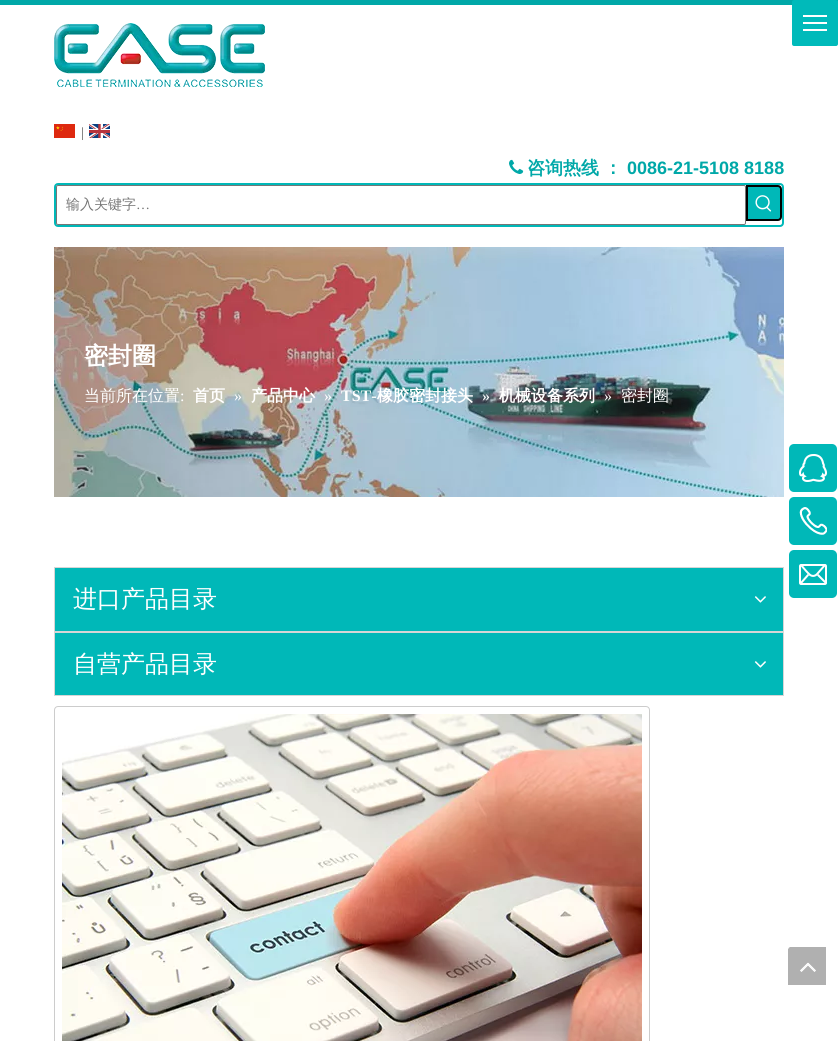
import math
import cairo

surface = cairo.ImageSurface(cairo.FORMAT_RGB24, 838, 1041)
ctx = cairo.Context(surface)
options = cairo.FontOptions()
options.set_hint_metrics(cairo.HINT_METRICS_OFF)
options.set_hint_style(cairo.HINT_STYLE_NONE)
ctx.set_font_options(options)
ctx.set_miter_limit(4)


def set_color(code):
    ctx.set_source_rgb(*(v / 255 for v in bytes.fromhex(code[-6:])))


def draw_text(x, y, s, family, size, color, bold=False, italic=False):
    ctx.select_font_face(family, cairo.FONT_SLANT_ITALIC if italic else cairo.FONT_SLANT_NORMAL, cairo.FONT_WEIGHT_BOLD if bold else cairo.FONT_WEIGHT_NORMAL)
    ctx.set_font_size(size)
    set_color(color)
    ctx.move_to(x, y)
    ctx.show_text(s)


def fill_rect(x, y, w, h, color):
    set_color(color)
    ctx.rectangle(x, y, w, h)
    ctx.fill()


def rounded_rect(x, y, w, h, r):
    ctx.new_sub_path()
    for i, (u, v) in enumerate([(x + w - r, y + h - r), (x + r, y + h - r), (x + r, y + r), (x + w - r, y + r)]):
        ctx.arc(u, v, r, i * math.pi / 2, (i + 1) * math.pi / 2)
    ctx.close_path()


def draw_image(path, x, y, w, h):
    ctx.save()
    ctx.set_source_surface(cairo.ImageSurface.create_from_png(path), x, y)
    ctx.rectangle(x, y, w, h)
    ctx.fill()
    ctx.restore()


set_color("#ffffff")
ctx.paint()
fill_rect(0, 0, 838, 5, "#00a8a8")
set_color("#00baba")
rounded_rect(792, 0, 46, 46, 2)
ctx.fill()
fill_rect(803, 15, 24, 2, "#ffffff")
fill_rect(803, 22, 24, 2, "#ffffff")
fill_rect(803, 29, 24, 2, "#ffffff")
draw_image("assets/img1.png", 54, 23, 211, 64)
draw_image("assets/img2.png", 54, 124, 21, 14)
draw_text(81, 137, "|", "Liberation Serif", 14, "#545454")
draw_image("assets/img3.png", 89, 124, 21, 14)
draw_image("assets/img4.png", 509, 159, 15, 15)
draw_text(527, 174, "咨询热线", "WenQuanYi Zen Hei", 18, "#00a8a8", bold=True)
draw_text(604, 174, "：", "WenQuanYi Zen Hei", 18, "#00a8a8", bold=True)
draw_text(627, 174, "0086-21-5108 8188", "Liberation Sans", 18, "#00a8a8", bold=True)
rounded_rect(55, 184, 728, 42, 3)
set_color("#00b8b8")
ctx.stroke()
set_color("#ffffff")
rounded_rect(56.5, 185.5, 689, 39, 1.5)
ctx.fill_preserve()
set_color("#767676")
ctx.set_line_width(1)
ctx.stroke()
draw_text(66, 209, "输入关键字", "WenQuanYi Zen Hei Medium", 14, "#757575")
draw_text(136, 209, "…", "Liberation Serif", 14, "#757575")
set_color("#00b8b8")
ctx.new_path()
ctx.move_to(747, 186)
ctx.line_to(778, 186)
ctx.curve_to(779.5, 186, 781, 187.5, 781, 189)
ctx.line_to(781, 217)
ctx.curve_to(781, 218.5, 779.5, 220, 778, 220)
ctx.line_to(747, 220)
ctx.close_path()
ctx.fill_preserve()
set_color("#000000")
ctx.set_line_width(2)
ctx.stroke()
draw_image("assets/img5.png", 755, 195, 17, 17)
draw_image("assets/img6.png", 54, 247, 730, 250)
draw_text(84, 364, "密封圈", "WenQuanYi Zen Hei", 24, "#ffffff", bold=True)
draw_text(84, 401, "当前所在位置", "WenQuanYi Zen Hei Medium", 16, "#ffffff")
draw_text(180, 401, ":", "Liberation Serif", 16, "#ffffff")
draw_text(193, 401, "首页", "WenQuanYi Zen Hei", 16, "#ffffff", bold=True)
draw_text(234, 401, "»", "Liberation Serif", 16, "#ffffff")
draw_text(251, 401, "产品中心", "WenQuanYi Zen Hei", 16, "#ffffff", bold=True)
draw_text(324, 401, "»", "Liberation Serif", 16, "#ffffff")
draw_text(341, 401, "TST-", "Liberation Serif", 16, "#ffffff", bold=True)
draw_text(377, 401, "橡胶密封接头", "WenQuanYi Zen Hei", 16, "#ffffff", bold=True)
draw_text(482, 401, "»", "Liberation Serif", 16, "#ffffff")
draw_text(499, 401, "机械设备系列", "WenQuanYi Zen Hei", 16, "#ffffff", bold=True)
draw_text(604, 401, "»", "Liberation Serif", 16, "#ffffff")
draw_text(621, 401, "密封圈", "WenQuanYi Zen Hei Medium", 16, "#ffffff")
ctx.rectangle(54.5, 567.5, 729, 64)
set_color("#d6d6d6")
ctx.set_line_width(1)
ctx.stroke()
fill_rect(55, 568, 728, 63, "#00b8b8")
draw_text(73, 607, "进口产品目录", "WenQuanYi Zen Hei Medium", 24, "#ffffff")
draw_image("assets/img7.png", 754, 596, 12, 7)
ctx.rectangle(54.5, 632.5, 729, 63)
set_color("#d6d6d6")
ctx.stroke()
fill_rect(55, 633, 728, 62, "#00b8b8")
draw_text(73, 672, "自营产品目录", "WenQuanYi Zen Hei Medium", 24, "#ffffff")
draw_image("assets/img7.png", 754, 661, 12, 7)
rounded_rect(54.5, 706.5, 595, 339, 3.5)
set_color("#cccccc")
ctx.stroke()
draw_image("assets/img8.png", 62, 714, 580, 327)
set_color("#00b8b8")
rounded_rect(789, 444, 48, 48, 5)
ctx.fill()
draw_image("assets/img9.png", 799, 454, 28, 28)
rounded_rect(789, 497, 48, 48, 5)
ctx.fill()
draw_image("assets/img10.png", 799, 507, 28, 28)
rounded_rect(789, 550, 48, 48, 5)
ctx.fill()
draw_image("assets/img11.png", 799, 564, 28, 21)
draw_image("assets/img12.png", 788, 947, 38, 38)
surface.write_to_png("output.png")
